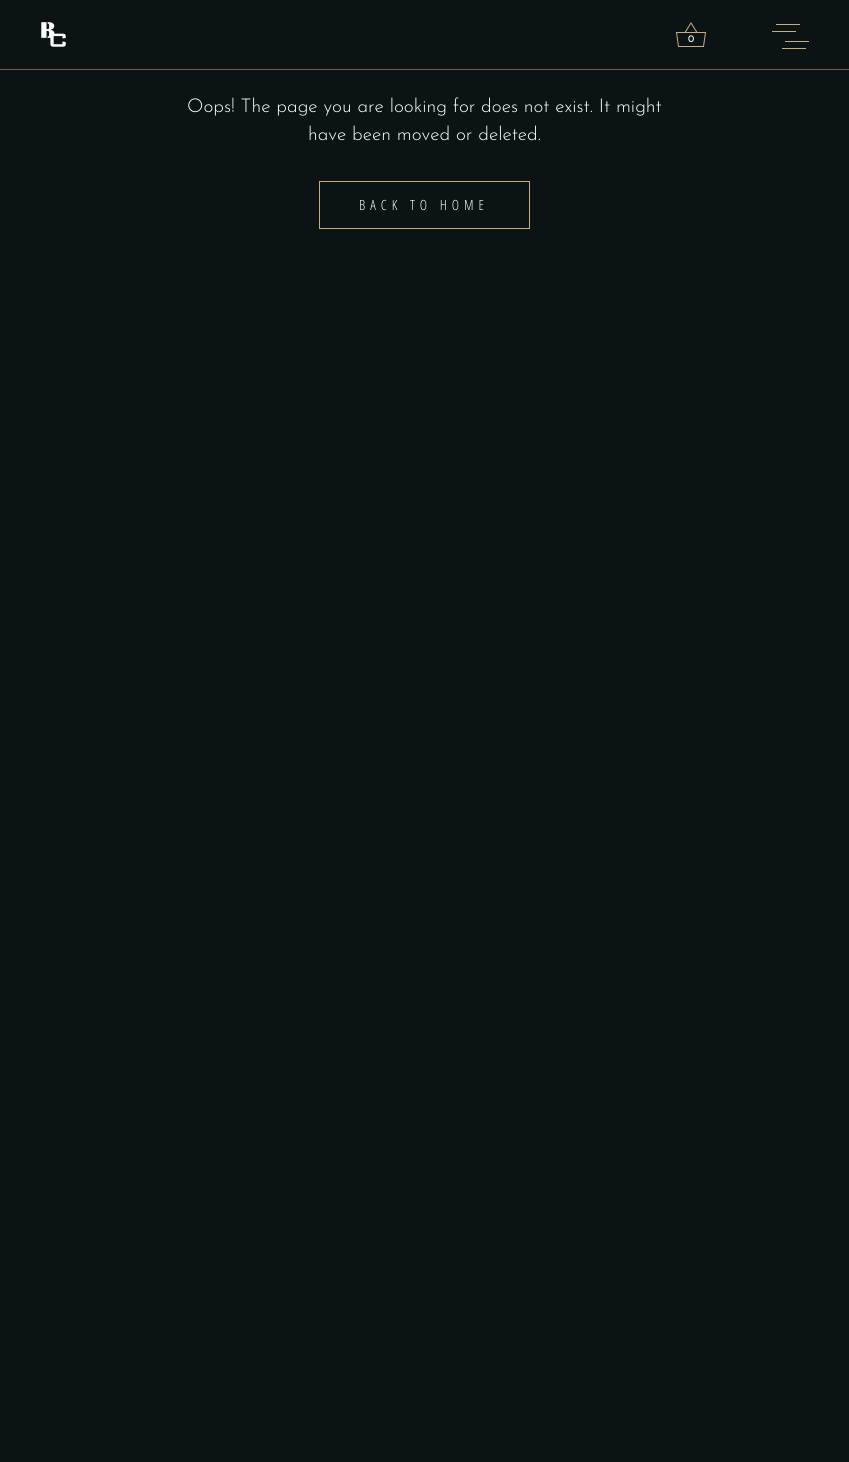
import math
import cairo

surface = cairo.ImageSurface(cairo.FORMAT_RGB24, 849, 1462)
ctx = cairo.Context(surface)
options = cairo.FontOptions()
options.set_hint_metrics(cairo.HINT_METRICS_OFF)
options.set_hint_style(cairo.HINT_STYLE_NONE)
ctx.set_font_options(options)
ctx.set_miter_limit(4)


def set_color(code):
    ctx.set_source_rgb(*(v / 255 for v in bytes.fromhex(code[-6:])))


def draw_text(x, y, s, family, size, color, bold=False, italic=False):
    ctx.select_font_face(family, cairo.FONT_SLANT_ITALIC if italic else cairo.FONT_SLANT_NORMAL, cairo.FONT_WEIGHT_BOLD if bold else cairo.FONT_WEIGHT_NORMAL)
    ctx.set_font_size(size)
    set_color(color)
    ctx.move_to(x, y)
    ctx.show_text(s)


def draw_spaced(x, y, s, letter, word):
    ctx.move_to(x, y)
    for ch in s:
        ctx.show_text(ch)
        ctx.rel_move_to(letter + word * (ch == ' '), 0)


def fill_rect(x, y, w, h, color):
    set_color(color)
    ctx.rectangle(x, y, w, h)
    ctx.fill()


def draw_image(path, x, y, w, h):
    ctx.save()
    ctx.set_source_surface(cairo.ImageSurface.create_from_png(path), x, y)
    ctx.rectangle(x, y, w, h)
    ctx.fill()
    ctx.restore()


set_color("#0b1315")
ctx.paint()
fill_rect(0, 69, 849, 1, "#715b3e")
draw_image("assets/img1.png", 41, 22, 25, 25)
ctx.new_path()
ctx.move_to(703.5, 46.5)
ctx.line_to(678.5, 46.5)
ctx.line_to(676.5, 32.5)
ctx.line_to(705.5, 32.5)
ctx.close_path()
ctx.move_to(685, 32.5)
ctx.line_to(691, 23)
ctx.line_to(697, 32.5)
set_color("#c9ab81")
ctx.set_line_width(1)
ctx.stroke()
draw_text(688, 42, "0", "Josefin Sans", 10, "#ffffff")
fill_rect(772, 31, 24, 1, "#c9ab81")
fill_rect(776, 24, 24, 1, "#c9ab81")
fill_rect(782, 48, 24, 1, "#c9ab81")
fill_rect(785, 41, 24, 1, "#c9ab81")
draw_text(187, 112, "Oops! The page you are looking for does not exist. It might", "Josefin Sans Light", 19, "#ffffff")
draw_text(308, 140, "have been moved or deleted.", "Josefin Sans Light", 19, "#ffffff")
ctx.rectangle(319.5, 181.5, 210, 47)
set_color("#c9ab81")
ctx.stroke()
ctx.select_font_face("Open Sans Condensed Light")
ctx.set_font_size(14)
set_color("#ffffff")
draw_spaced(359, 210, "BACK TO HOME", 5, 0)
surface.write_to_png("output.png")
